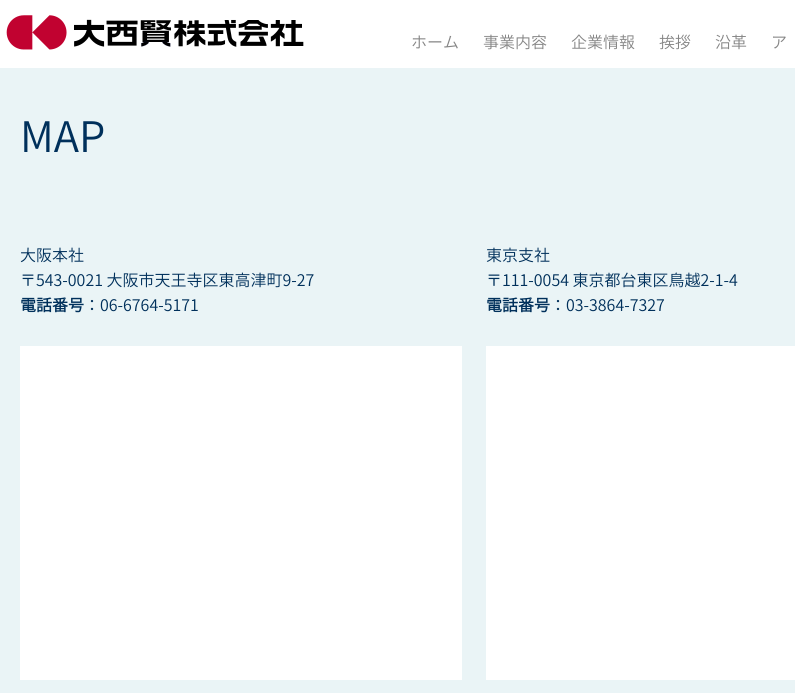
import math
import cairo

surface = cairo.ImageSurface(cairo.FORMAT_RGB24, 795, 693)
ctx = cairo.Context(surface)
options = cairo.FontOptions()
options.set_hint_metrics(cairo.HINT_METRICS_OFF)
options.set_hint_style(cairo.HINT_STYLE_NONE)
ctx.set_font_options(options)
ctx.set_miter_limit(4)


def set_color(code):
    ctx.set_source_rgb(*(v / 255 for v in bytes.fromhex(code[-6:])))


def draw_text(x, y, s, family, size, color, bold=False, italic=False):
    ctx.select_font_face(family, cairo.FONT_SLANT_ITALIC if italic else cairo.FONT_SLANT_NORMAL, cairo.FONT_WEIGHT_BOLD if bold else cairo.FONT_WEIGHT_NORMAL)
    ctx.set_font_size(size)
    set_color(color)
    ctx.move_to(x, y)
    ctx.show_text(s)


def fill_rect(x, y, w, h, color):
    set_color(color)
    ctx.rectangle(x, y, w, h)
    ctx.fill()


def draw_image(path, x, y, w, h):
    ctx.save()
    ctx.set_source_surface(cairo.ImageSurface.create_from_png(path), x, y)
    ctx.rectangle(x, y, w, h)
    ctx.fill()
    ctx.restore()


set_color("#eaf4f6")
ctx.paint()
fill_rect(0, 0, 795, 68, "#ffffff")
draw_image("assets/img1.png", 6, 15, 298, 35)
draw_text(411, 48, "ホーム", "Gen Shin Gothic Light", 16, "#858585")
draw_text(483, 48, "事業内容", "Gen Shin Gothic Light", 16, "#858585")
draw_text(571, 48, "企業情報", "Gen Shin Gothic Light", 16, "#858585")
draw_text(659, 48, "挨拶", "Gen Shin Gothic Light", 16, "#858585")
draw_text(715, 48, "沿革", "Gen Shin Gothic Light", 16, "#858585")
draw_text(771, 48, "ア", "Gen Shin Gothic Light", 16, "#858585")
draw_text(20, 152, "MAP", "Gen Shin Gothic Light", 42, "#00305b")
draw_text(20, 261, "大阪本社", "Gen Shin Gothic Light", 16, "#00305b")
draw_text(20, 286, "〒543-0021 大阪市天王寺区東高津町9-27", "Gen Shin Gothic Light", 16, "#00305b")
draw_text(20, 311, "電話番号", "Gen Shin Gothic", 16, "#00305b", bold=True)
draw_text(84, 311, "：06-6764-5171", "Gen Shin Gothic Light", 16, "#00305b")
draw_text(486, 261, "東京支社", "Gen Shin Gothic Light", 16, "#00305b")
draw_text(486, 286, "〒111-0054 東京都台東区鳥越2-1-4", "Gen Shin Gothic Light", 16, "#00305b")
draw_text(486, 311, "電話番号", "Gen Shin Gothic", 16, "#00305b", bold=True)
draw_text(550, 311, "：03-3864-7327", "Gen Shin Gothic Light", 16, "#00305b")
fill_rect(20, 346, 442, 334, "#ffffff")
fill_rect(486, 346, 309, 334, "#ffffff")
surface.write_to_png("output.png")
